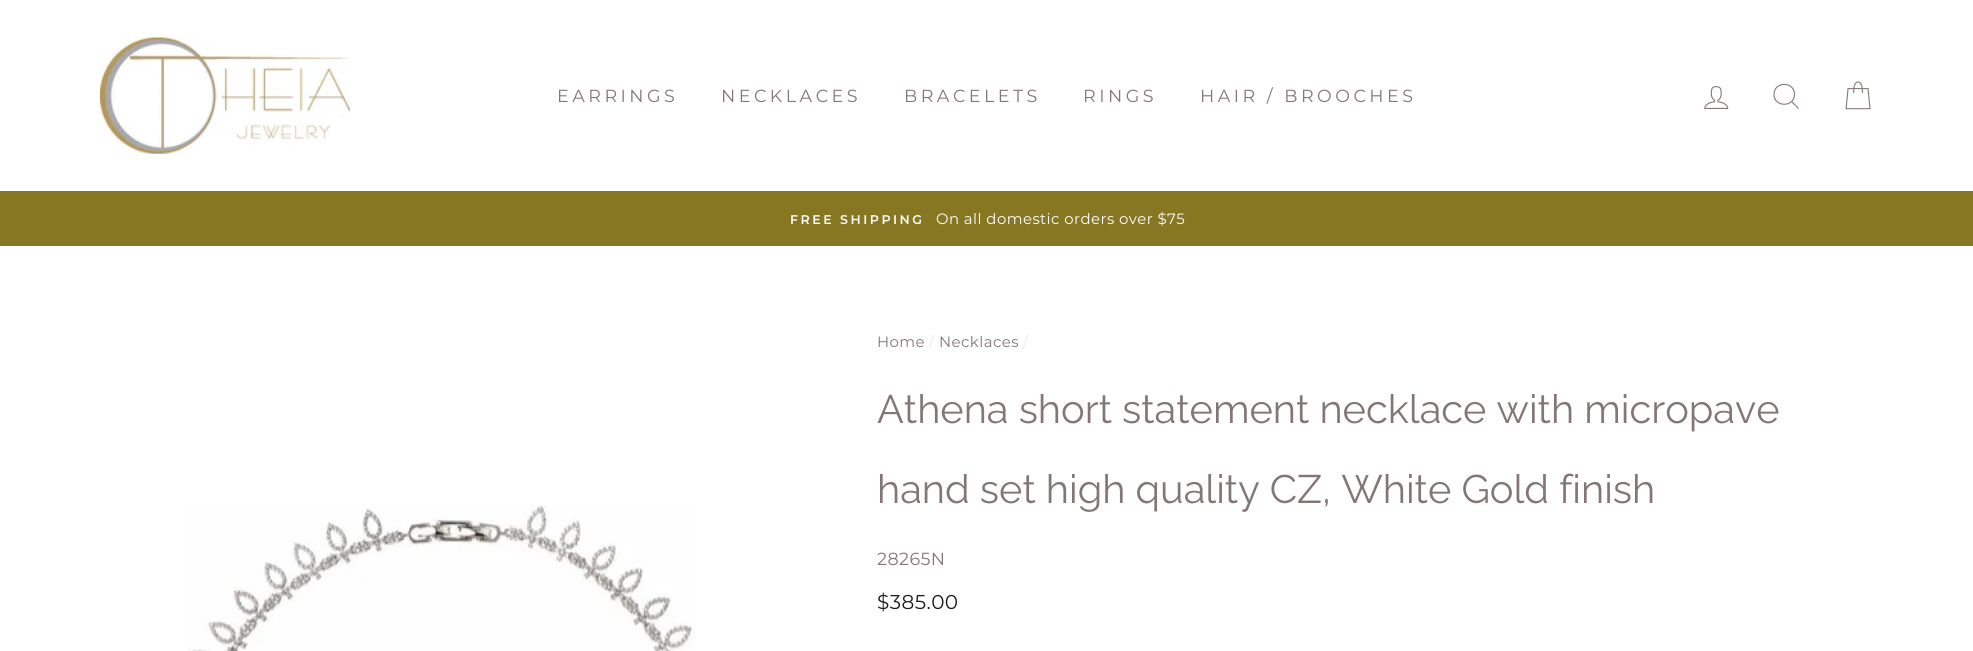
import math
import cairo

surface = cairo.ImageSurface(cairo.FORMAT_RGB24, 1973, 651)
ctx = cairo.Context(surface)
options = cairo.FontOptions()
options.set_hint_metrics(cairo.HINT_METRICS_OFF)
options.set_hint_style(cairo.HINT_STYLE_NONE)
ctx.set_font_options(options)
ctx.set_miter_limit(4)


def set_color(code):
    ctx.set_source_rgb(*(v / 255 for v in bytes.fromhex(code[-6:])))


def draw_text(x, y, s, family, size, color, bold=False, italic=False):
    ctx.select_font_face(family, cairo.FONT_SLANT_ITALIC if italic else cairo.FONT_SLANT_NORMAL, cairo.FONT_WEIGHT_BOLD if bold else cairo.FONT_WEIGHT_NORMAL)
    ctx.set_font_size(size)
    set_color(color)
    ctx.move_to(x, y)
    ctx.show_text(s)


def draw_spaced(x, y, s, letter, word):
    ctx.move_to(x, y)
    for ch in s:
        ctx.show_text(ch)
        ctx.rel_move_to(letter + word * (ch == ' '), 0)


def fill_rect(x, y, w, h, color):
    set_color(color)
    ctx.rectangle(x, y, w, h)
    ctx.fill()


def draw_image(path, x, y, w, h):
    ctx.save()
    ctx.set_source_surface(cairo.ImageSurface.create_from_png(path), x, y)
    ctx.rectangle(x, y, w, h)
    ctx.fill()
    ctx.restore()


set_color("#ffffff")
ctx.paint()
draw_image("assets/img1.png", 100, 37, 250, 117)
ctx.select_font_face("Montserrat")
ctx.set_font_size(17.5)
set_color("#837676")
draw_spaced(557, 102, "EARRINGS", 3.5, 0)
draw_spaced(721, 102, "NECKLACES", 3.5, 0)
draw_spaced(904, 102, "BRACELETS", 3.5, 0)
draw_spaced(1083, 102, "RINGS", 3.5, 0)
draw_spaced(1200, 102, "HAIR / BROOCHES", 3.5, 0)
draw_image("assets/img2.png", 1704, 86, 25, 23)
ctx.new_path()
ctx.move_to(1794.5, 94.5)
ctx.curve_to(1794.5, 107.5, 1774, 107.5, 1774, 94.5)
ctx.curve_to(1774, 81, 1794.5, 81, 1794.5, 94.5)
ctx.close_path()
ctx.move_to(1798.5, 108.5)
ctx.line_to(1791.5, 101.5)
ctx.set_line_width(1.1)
ctx.stroke()
draw_image("assets/img3.png", 1845, 81, 26, 29)
fill_rect(0, 191, 1973, 55, "#887722")
ctx.select_font_face("Montserrat SemiBold")
ctx.set_font_size(12.6)
set_color("#ffffff")
draw_spaced(790, 224, "FREE SHIPPING", 2.5, 0)
ctx.select_font_face("Montserrat")
ctx.set_font_size(14.9)
draw_spaced(936, 224, "On all domestic orders over $75", 0.45, 0)
draw_image("assets/img4.png", 188, 505, 507, 146)
set_color("#837676")
draw_spaced(877, 347, "Home", 0.45, 0)
set_color("#e8e8e1")
draw_spaced(929, 347, "/", 0.45, 0)
set_color("#837676")
draw_spaced(939, 347, "Necklaces", 0.45, 0)
set_color("#e8e8e1")
draw_spaced(1023, 347, "/", 0.45, 0)
draw_text(877, 423, "Athena short statement necklace with micropave", "Raleway", 39.75, "#837676")
draw_text(877, 503, "hand set high quality CZ, White Gold finish", "Raleway", 39.75, "#837676")
ctx.select_font_face("Montserrat")
ctx.set_font_size(17.5)
draw_spaced(877, 565, "28265N", 0.45, 0)
ctx.set_font_size(20)
set_color("#1c1d1d")
draw_spaced(877, 609, "$385.00", 0.45, 0)
surface.write_to_png("output.png")
